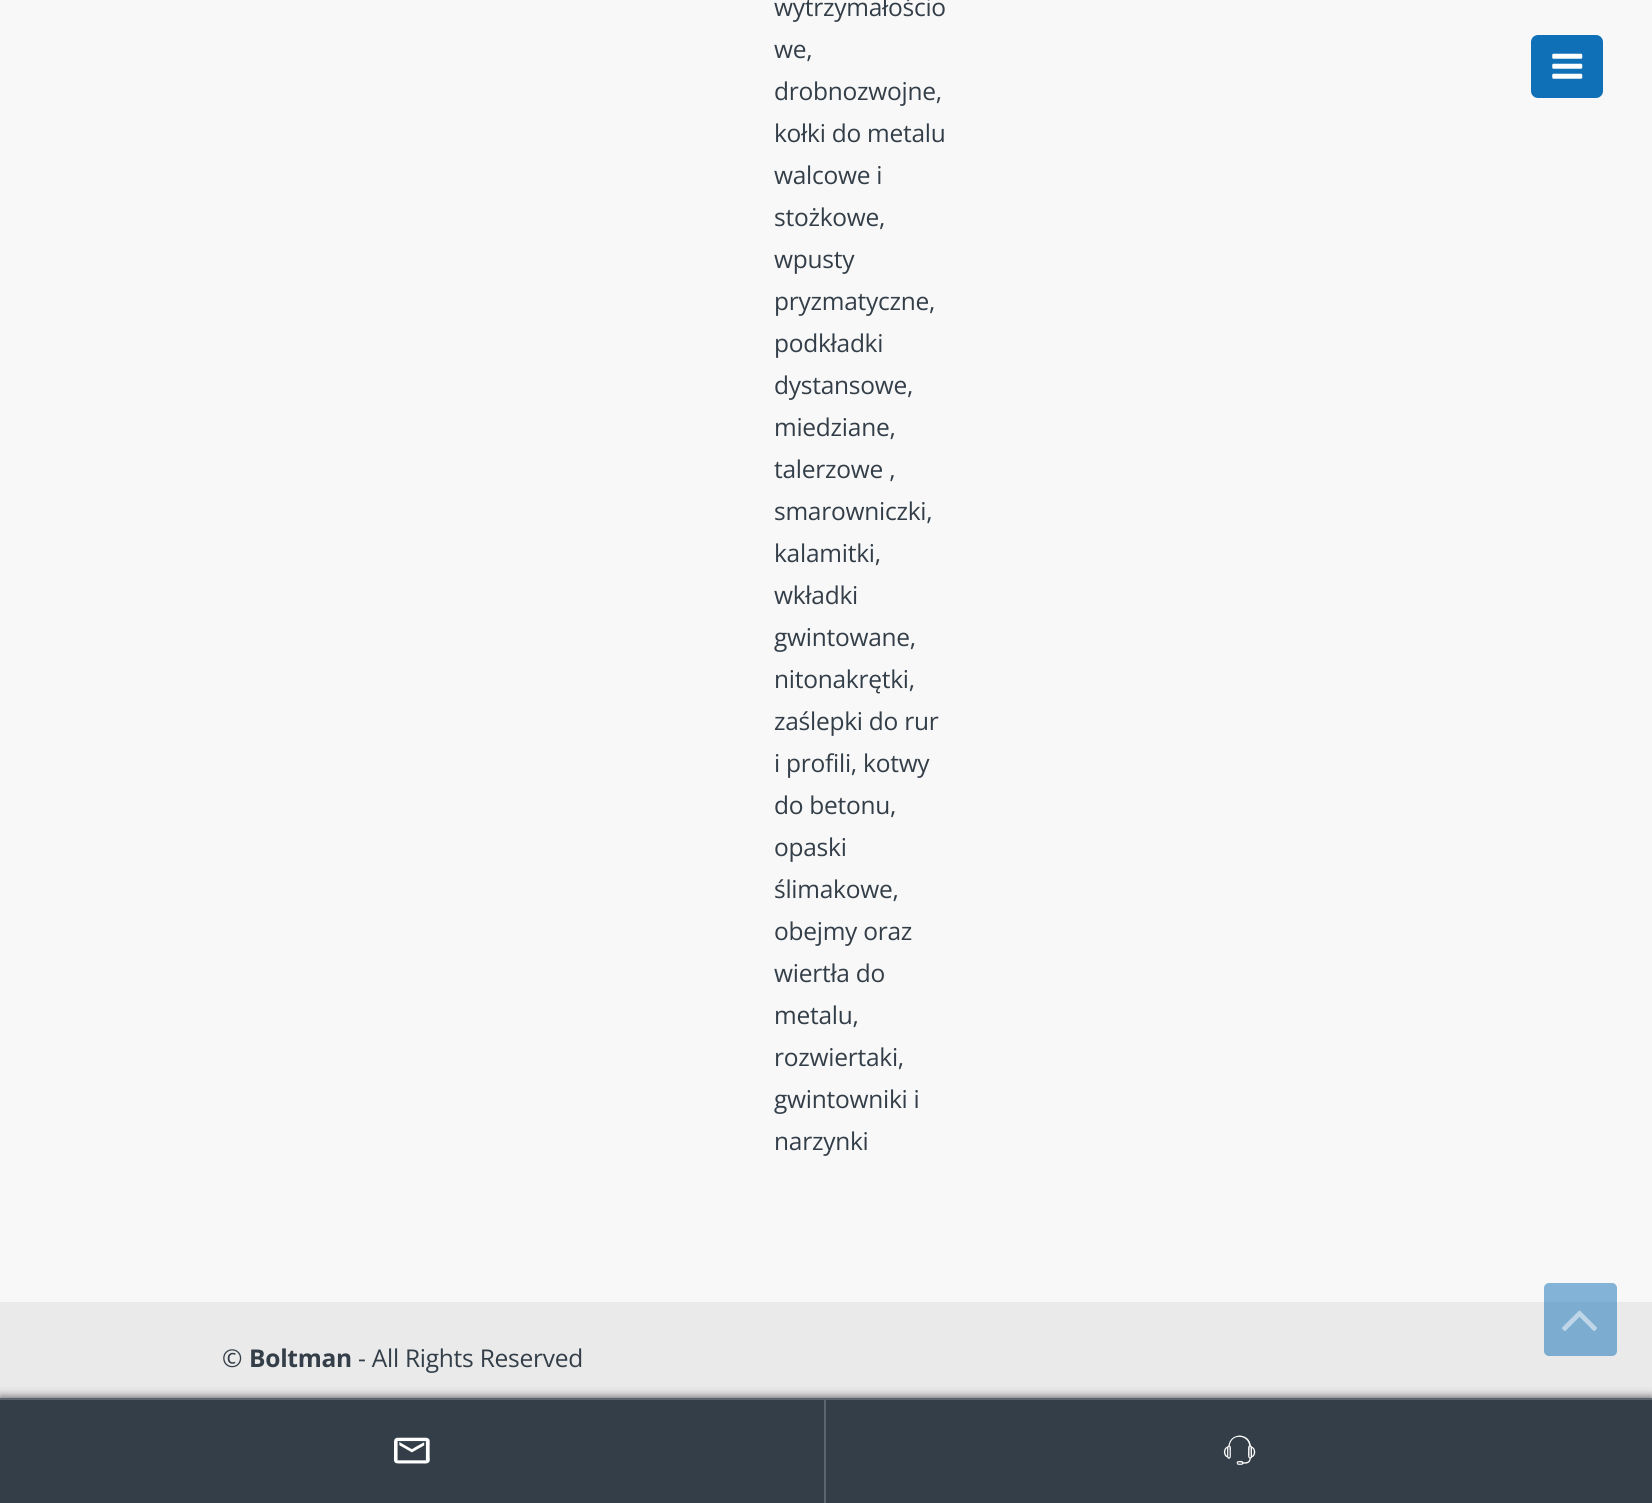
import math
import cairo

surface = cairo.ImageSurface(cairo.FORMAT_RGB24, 1652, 1503)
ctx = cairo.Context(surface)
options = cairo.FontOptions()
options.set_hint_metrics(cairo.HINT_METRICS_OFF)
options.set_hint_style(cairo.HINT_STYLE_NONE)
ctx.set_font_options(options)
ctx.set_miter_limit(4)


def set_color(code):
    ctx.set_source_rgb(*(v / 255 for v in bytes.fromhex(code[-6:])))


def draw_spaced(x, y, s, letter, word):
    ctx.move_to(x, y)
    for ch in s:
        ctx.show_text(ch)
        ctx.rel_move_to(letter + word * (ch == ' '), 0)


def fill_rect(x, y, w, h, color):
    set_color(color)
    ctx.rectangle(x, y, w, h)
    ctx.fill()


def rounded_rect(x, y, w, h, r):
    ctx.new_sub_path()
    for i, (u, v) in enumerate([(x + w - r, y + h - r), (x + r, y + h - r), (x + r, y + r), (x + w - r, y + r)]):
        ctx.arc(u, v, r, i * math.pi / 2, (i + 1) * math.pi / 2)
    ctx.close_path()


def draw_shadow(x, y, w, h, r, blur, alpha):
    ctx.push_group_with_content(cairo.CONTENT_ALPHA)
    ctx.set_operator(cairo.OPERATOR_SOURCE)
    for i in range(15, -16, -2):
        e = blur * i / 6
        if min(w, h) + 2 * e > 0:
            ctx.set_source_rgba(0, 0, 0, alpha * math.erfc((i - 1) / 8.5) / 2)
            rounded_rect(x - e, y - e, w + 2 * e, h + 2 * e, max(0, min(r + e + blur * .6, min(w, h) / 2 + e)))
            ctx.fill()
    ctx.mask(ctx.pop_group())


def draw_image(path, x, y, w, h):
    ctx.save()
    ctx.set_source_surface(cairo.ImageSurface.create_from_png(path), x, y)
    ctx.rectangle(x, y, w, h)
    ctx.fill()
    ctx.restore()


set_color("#f8f8f8")
ctx.paint()
ctx.select_font_face("Open Sans")
ctx.set_font_size(24.5)
set_color("#333e48")
draw_spaced(774, 16, "wytrzymałościo", -0.25, 0)
draw_spaced(774, 58, "we,", -0.25, 0)
draw_spaced(774, 100, "drobnozwojne,", -0.25, 0)
draw_spaced(774, 142, "kołki do metalu", -0.25, 0)
draw_spaced(774, 184, "walcowe i", -0.25, 0)
draw_spaced(774, 226, "stożkowe,", -0.25, 0)
draw_spaced(774, 268, "wpusty", -0.25, 0)
draw_spaced(774, 310, "pryzmatyczne,", -0.25, 0)
draw_spaced(774, 352, "podkładki", -0.25, 0)
draw_spaced(774, 394, "dystansowe,", -0.25, 0)
draw_spaced(774, 436, "miedziane,", -0.25, 0)
draw_spaced(774, 478, "talerzowe ,", -0.25, 0)
draw_spaced(774, 520, "smarowniczki,", -0.25, 0)
draw_spaced(774, 562, "kalamitki,", -0.25, 0)
draw_spaced(774, 604, "wkładki", -0.25, 0)
draw_spaced(774, 646, "gwintowane,", -0.25, 0)
draw_spaced(774, 688, "nitonakrętki,", -0.25, 0)
draw_spaced(774, 730, "zaślepki do rur", -0.25, 0)
draw_spaced(774, 772, "i profili, kotwy", -0.25, 0)
draw_spaced(774, 814, "do betonu,", -0.25, 0)
draw_spaced(774, 856, "opaski", -0.25, 0)
draw_spaced(774, 898, "ślimakowe,", -0.25, 0)
draw_spaced(774, 940, "obejmy oraz", -0.25, 0)
draw_spaced(774, 982, "wiertła do", -0.25, 0)
draw_spaced(774, 1024, "metalu,", -0.25, 0)
draw_spaced(774, 1066, "rozwiertaki,", -0.25, 0)
draw_spaced(774, 1108, "gwintowniki i", -0.25, 0)
draw_spaced(774, 1150, "narzynki", -0.25, 0)
fill_rect(0, 1302, 1652, 96, "#eaeaea")
set_color("#333e48")
draw_spaced(222, 1367, "©", -0.25, 0)
ctx.select_font_face("Open Sans", cairo.FONT_SLANT_NORMAL, cairo.FONT_WEIGHT_BOLD)
draw_spaced(249, 1367, "Boltman", -0.25, 0)
ctx.select_font_face("Open Sans")
draw_spaced(358, 1367, "- All Rights Reserved", -0.25, 0)
set_color("#0f70b7")
rounded_rect(1531, 35, 72, 63, 7)
ctx.fill()
draw_image("assets/img1.png", 1552, 53, 31, 26)
set_color("#000000")
draw_shadow(0, 1398, 1652, 105, 0, 5, 0.7)
fill_rect(0, 1400, 1652, 103, "#333e48")
fill_rect(0, 1398, 1652, 2, "#5c656d")
fill_rect(824, 1400, 2, 103, "#5c656d")
draw_image("assets/img2.png", 393, 1437, 37, 27)
draw_image("assets/img3.png", 1223, 1435, 33, 30)
ctx.set_source_rgba(0.059, 0.439, 0.718, 0.5)
rounded_rect(1544, 1283, 73, 73, 5)
ctx.fill()
draw_image("assets/img4.png", 1562, 1310, 35, 21)
surface.write_to_png("output.png")
